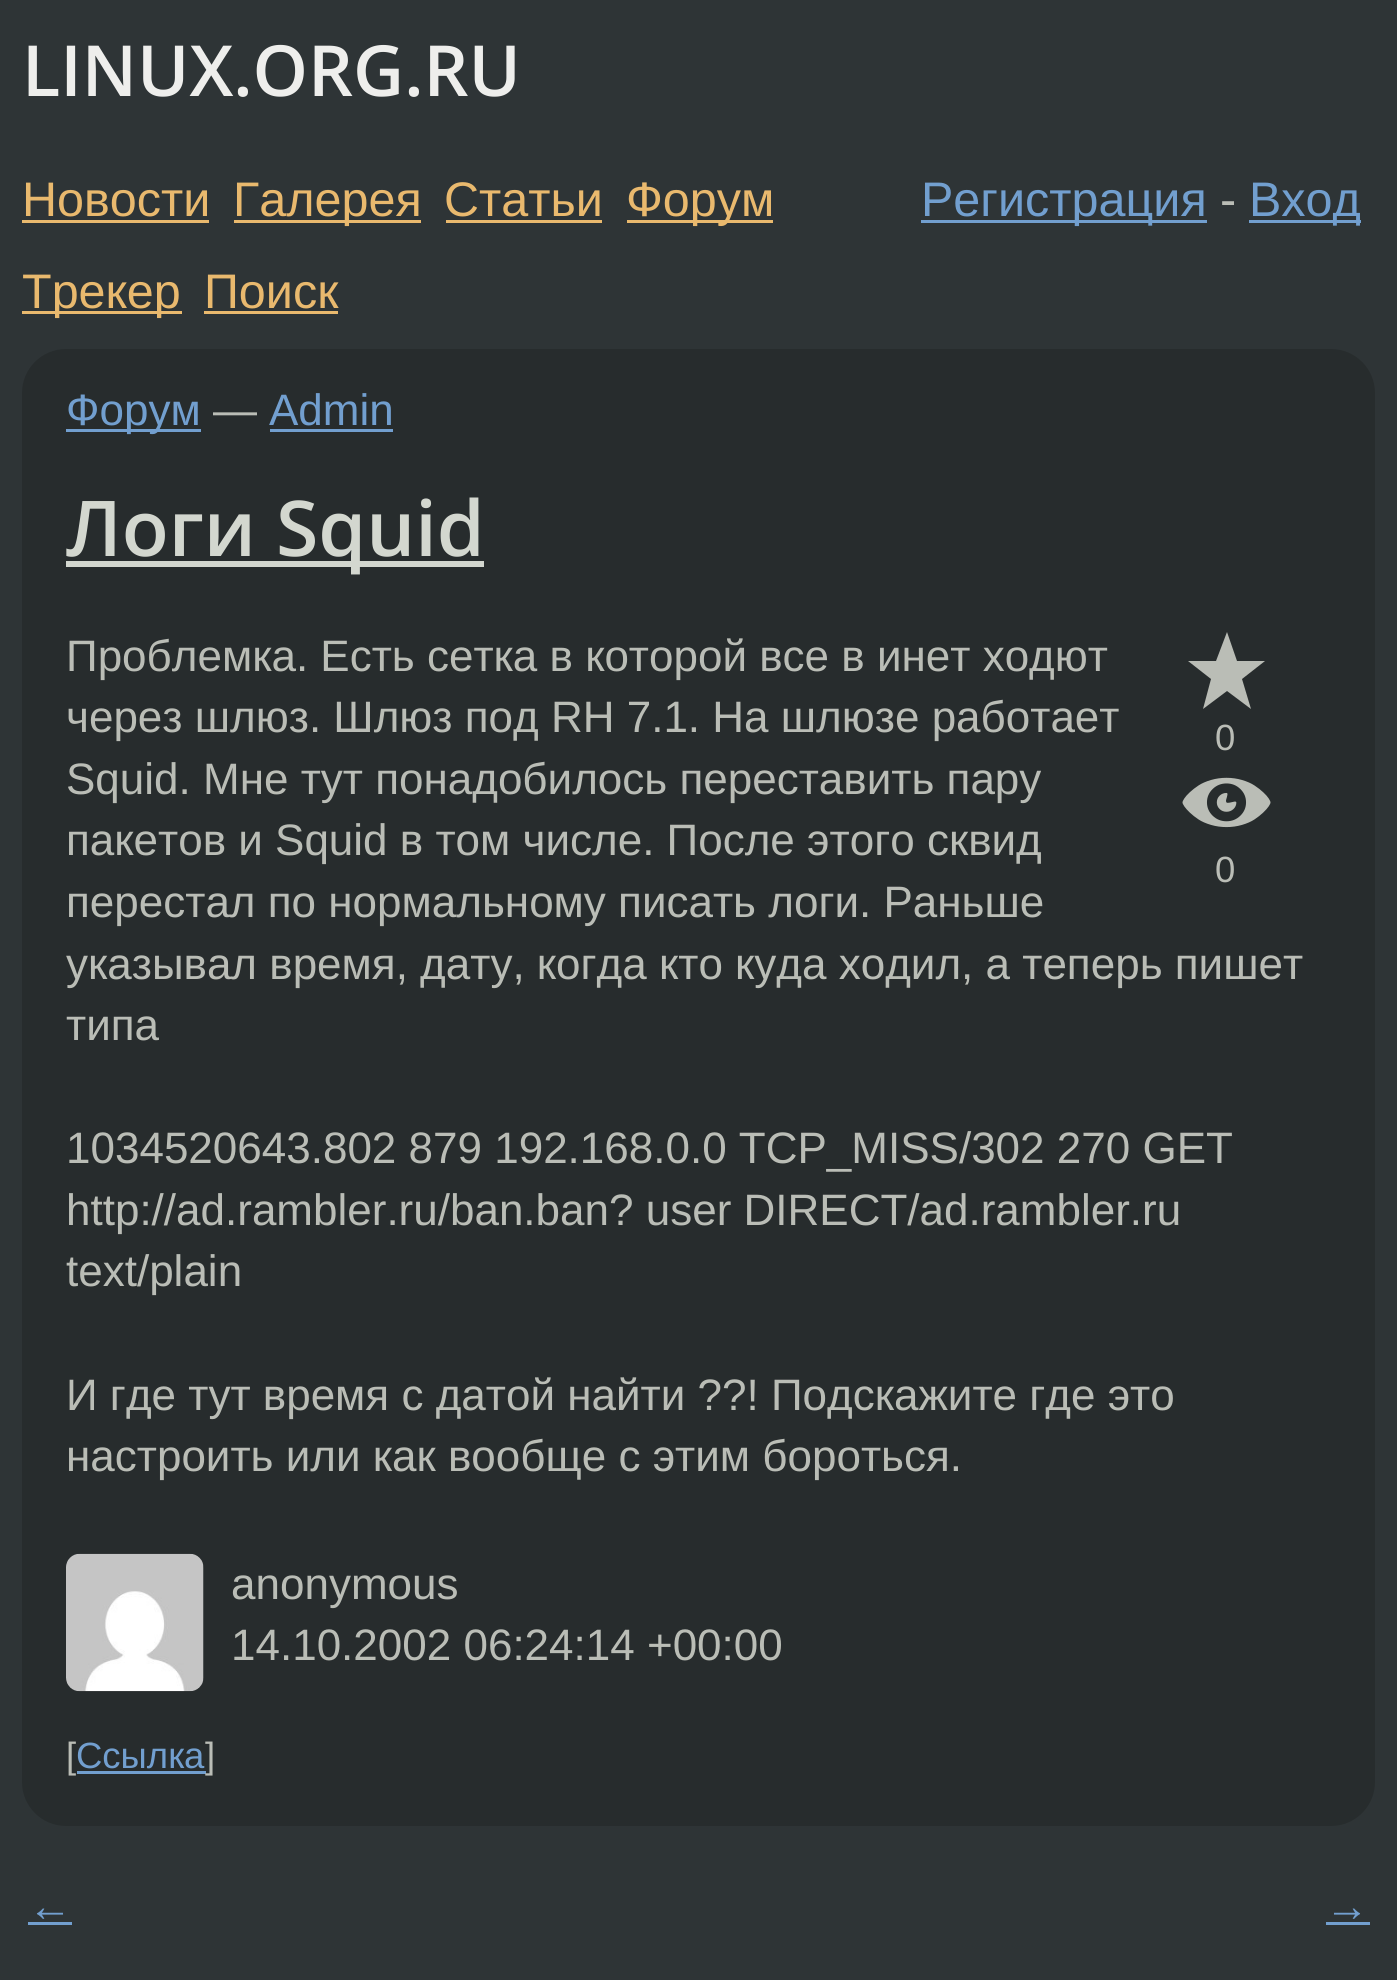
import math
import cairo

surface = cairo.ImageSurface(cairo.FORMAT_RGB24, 1397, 1980)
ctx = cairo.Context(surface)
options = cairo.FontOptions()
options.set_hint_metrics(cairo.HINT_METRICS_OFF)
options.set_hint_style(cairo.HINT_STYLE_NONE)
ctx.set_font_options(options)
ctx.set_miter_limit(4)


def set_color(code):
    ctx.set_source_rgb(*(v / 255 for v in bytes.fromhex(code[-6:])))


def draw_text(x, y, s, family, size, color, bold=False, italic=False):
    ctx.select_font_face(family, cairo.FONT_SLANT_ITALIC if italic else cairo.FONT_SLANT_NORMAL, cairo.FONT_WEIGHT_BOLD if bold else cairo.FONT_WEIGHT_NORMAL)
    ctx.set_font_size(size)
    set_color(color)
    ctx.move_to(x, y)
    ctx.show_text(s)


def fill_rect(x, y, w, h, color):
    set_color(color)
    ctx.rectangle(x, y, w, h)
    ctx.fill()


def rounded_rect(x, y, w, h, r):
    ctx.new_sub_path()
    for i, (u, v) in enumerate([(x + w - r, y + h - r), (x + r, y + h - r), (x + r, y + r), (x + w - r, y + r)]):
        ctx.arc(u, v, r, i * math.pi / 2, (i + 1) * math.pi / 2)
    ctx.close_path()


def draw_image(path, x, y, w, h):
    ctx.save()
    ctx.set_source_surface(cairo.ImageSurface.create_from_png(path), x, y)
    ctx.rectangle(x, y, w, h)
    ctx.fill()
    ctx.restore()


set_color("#2e3436")
ctx.paint()
draw_text(22, 96, "LINUX.ORG.RU", "Open Sans SemiBold", 70.5, "#eeeeec")
draw_text(22, 216, "Новости", "Liberation Sans", 48.5, "#e9b96e")
fill_rect(22, 220, 187, 3, "#e9b96e")
fill_rect(234, 220, 187, 3, "#e9b96e")
draw_text(233, 216, "Галерея", "Liberation Sans", 48.5, "#e9b96e")
draw_text(444, 216, "Статьи", "Liberation Sans", 48.5, "#e9b96e")
fill_rect(446, 220, 156, 3, "#e9b96e")
fill_rect(627, 220, 146, 3, "#e9b96e")
draw_text(626, 216, "Форум", "Liberation Sans", 48.5, "#e9b96e")
fill_rect(22, 311, 160, 3, "#e9b96e")
draw_text(22, 308, "Трекер", "Liberation Sans", 48.5, "#e9b96e")
draw_text(204, 308, "Поиск", "Liberation Sans", 48.5, "#e9b96e")
fill_rect(204, 311, 134, 3, "#e9b96e")
fill_rect(921, 220, 286, 3, "#729fcf")
draw_text(921, 216, "Регистрация", "Liberation Sans", 48.5, "#729fcf")
draw_text(1220, 216, "-", "Liberation Sans", 48.5, "#babdb6")
fill_rect(1249, 220, 112, 3, "#729fcf")
draw_text(1249, 216, "Вход", "Liberation Sans", 48.5, "#729fcf")
set_color("#272c2d")
rounded_rect(22, 349, 1353, 1477, 44)
ctx.fill()
fill_rect(66, 429, 135, 3, "#729fcf")
draw_text(66, 425, "Форум", "Liberation Sans", 44, "#729fcf")
draw_text(213, 425, "—", "Liberation Sans", 44, "#babdb6")
draw_text(269, 425, "Admin", "Liberation Sans", 44, "#729fcf")
fill_rect(270, 429, 123, 3, "#729fcf")
fill_rect(66, 561, 418, 6, "#d3d7cf")
draw_text(66, 556, "Логи Squid", "Open Sans SemiBold", 77, "#d3d7cf")
draw_text(66, 671, "Проблемка. Есть сетка в которой все в инет ходют", "Liberation Sans", 44, "#babdb6")
draw_text(66, 732, "через шлюз. Шлюз под RH 7.1. На шлюзе работает", "Liberation Sans", 44, "#babdb6")
draw_text(66, 794, "Squid. Мне тут понадобилось переставить пару", "Liberation Sans", 44, "#babdb6")
draw_text(66, 855, "пакетов и Squid в том числе. После этого сквид", "Liberation Sans", 44, "#babdb6")
draw_text(66, 917, "перестал по нормальному писать логи. Раньше", "Liberation Sans", 44, "#babdb6")
draw_text(66, 979, "указывал время, дату, когда кто куда ходил, а теперь пишет", "Liberation Sans", 44, "#babdb6")
draw_text(66, 1040, "типа", "Liberation Sans", 44, "#babdb6")
draw_text(66, 1163, "1034520643.802 879 192.168.0.0 TCP_MISS/302 270 GET", "Liberation Sans", 44, "#babdb6")
draw_text(66, 1225, "http://ad.rambler.ru/ban.ban? user DIRECT/ad.rambler.ru", "Liberation Sans", 44, "#babdb6")
draw_text(66, 1286, "text/plain", "Liberation Sans", 44, "#babdb6")
draw_text(66, 1410, "И где тут время с датой найти ??! Подскажите где это", "Liberation Sans", 44, "#babdb6")
draw_text(66, 1471, "настроить или как вообще с этим бороться.", "Liberation Sans", 44, "#babdb6")
ctx.new_path()
ctx.move_to(1227, 632)
ctx.line_to(1237, 661)
ctx.line_to(1265, 661)
ctx.line_to(1242, 679)
ctx.line_to(1251, 709)
ctx.line_to(1227, 691)
ctx.line_to(1203, 709)
ctx.line_to(1211, 679)
ctx.line_to(1188, 661)
ctx.line_to(1216, 661)
ctx.close_path()
ctx.fill()
draw_text(1215, 750, "0", "Liberation Sans", 36.5, "#babdb6")
draw_image("assets/img1.png", 1182, 777, 89, 51)
draw_text(1215, 882, "0", "Liberation Sans", 36.5, "#babdb6")
draw_image("assets/img2.png", 66, 1553, 138, 139)
draw_text(231, 1599, "anonymous", "Liberation Sans", 44, "#babdb6")
draw_text(231, 1660, "14.10.2002 06:24:14 +00:00", "Liberation Sans", 44, "#babdb6")
draw_text(66, 1768, "[", "Liberation Sans", 36.5, "#babdb6")
draw_text(76, 1768, "Ссылка", "Liberation Sans", 36.5, "#729fcf")
fill_rect(77, 1771, 129, 3, "#729fcf")
draw_text(205, 1768, "]", "Liberation Sans", 36.5, "#babdb6")
draw_text(28, 1921, "←", "Liberation Sans", 44, "#729fcf")
fill_rect(28, 1922, 44, 3, "#729fcf")
draw_text(1325, 1921, "→", "Liberation Sans", 44, "#729fcf")
fill_rect(1326, 1922, 44, 3, "#729fcf")
surface.write_to_png("output.png")
